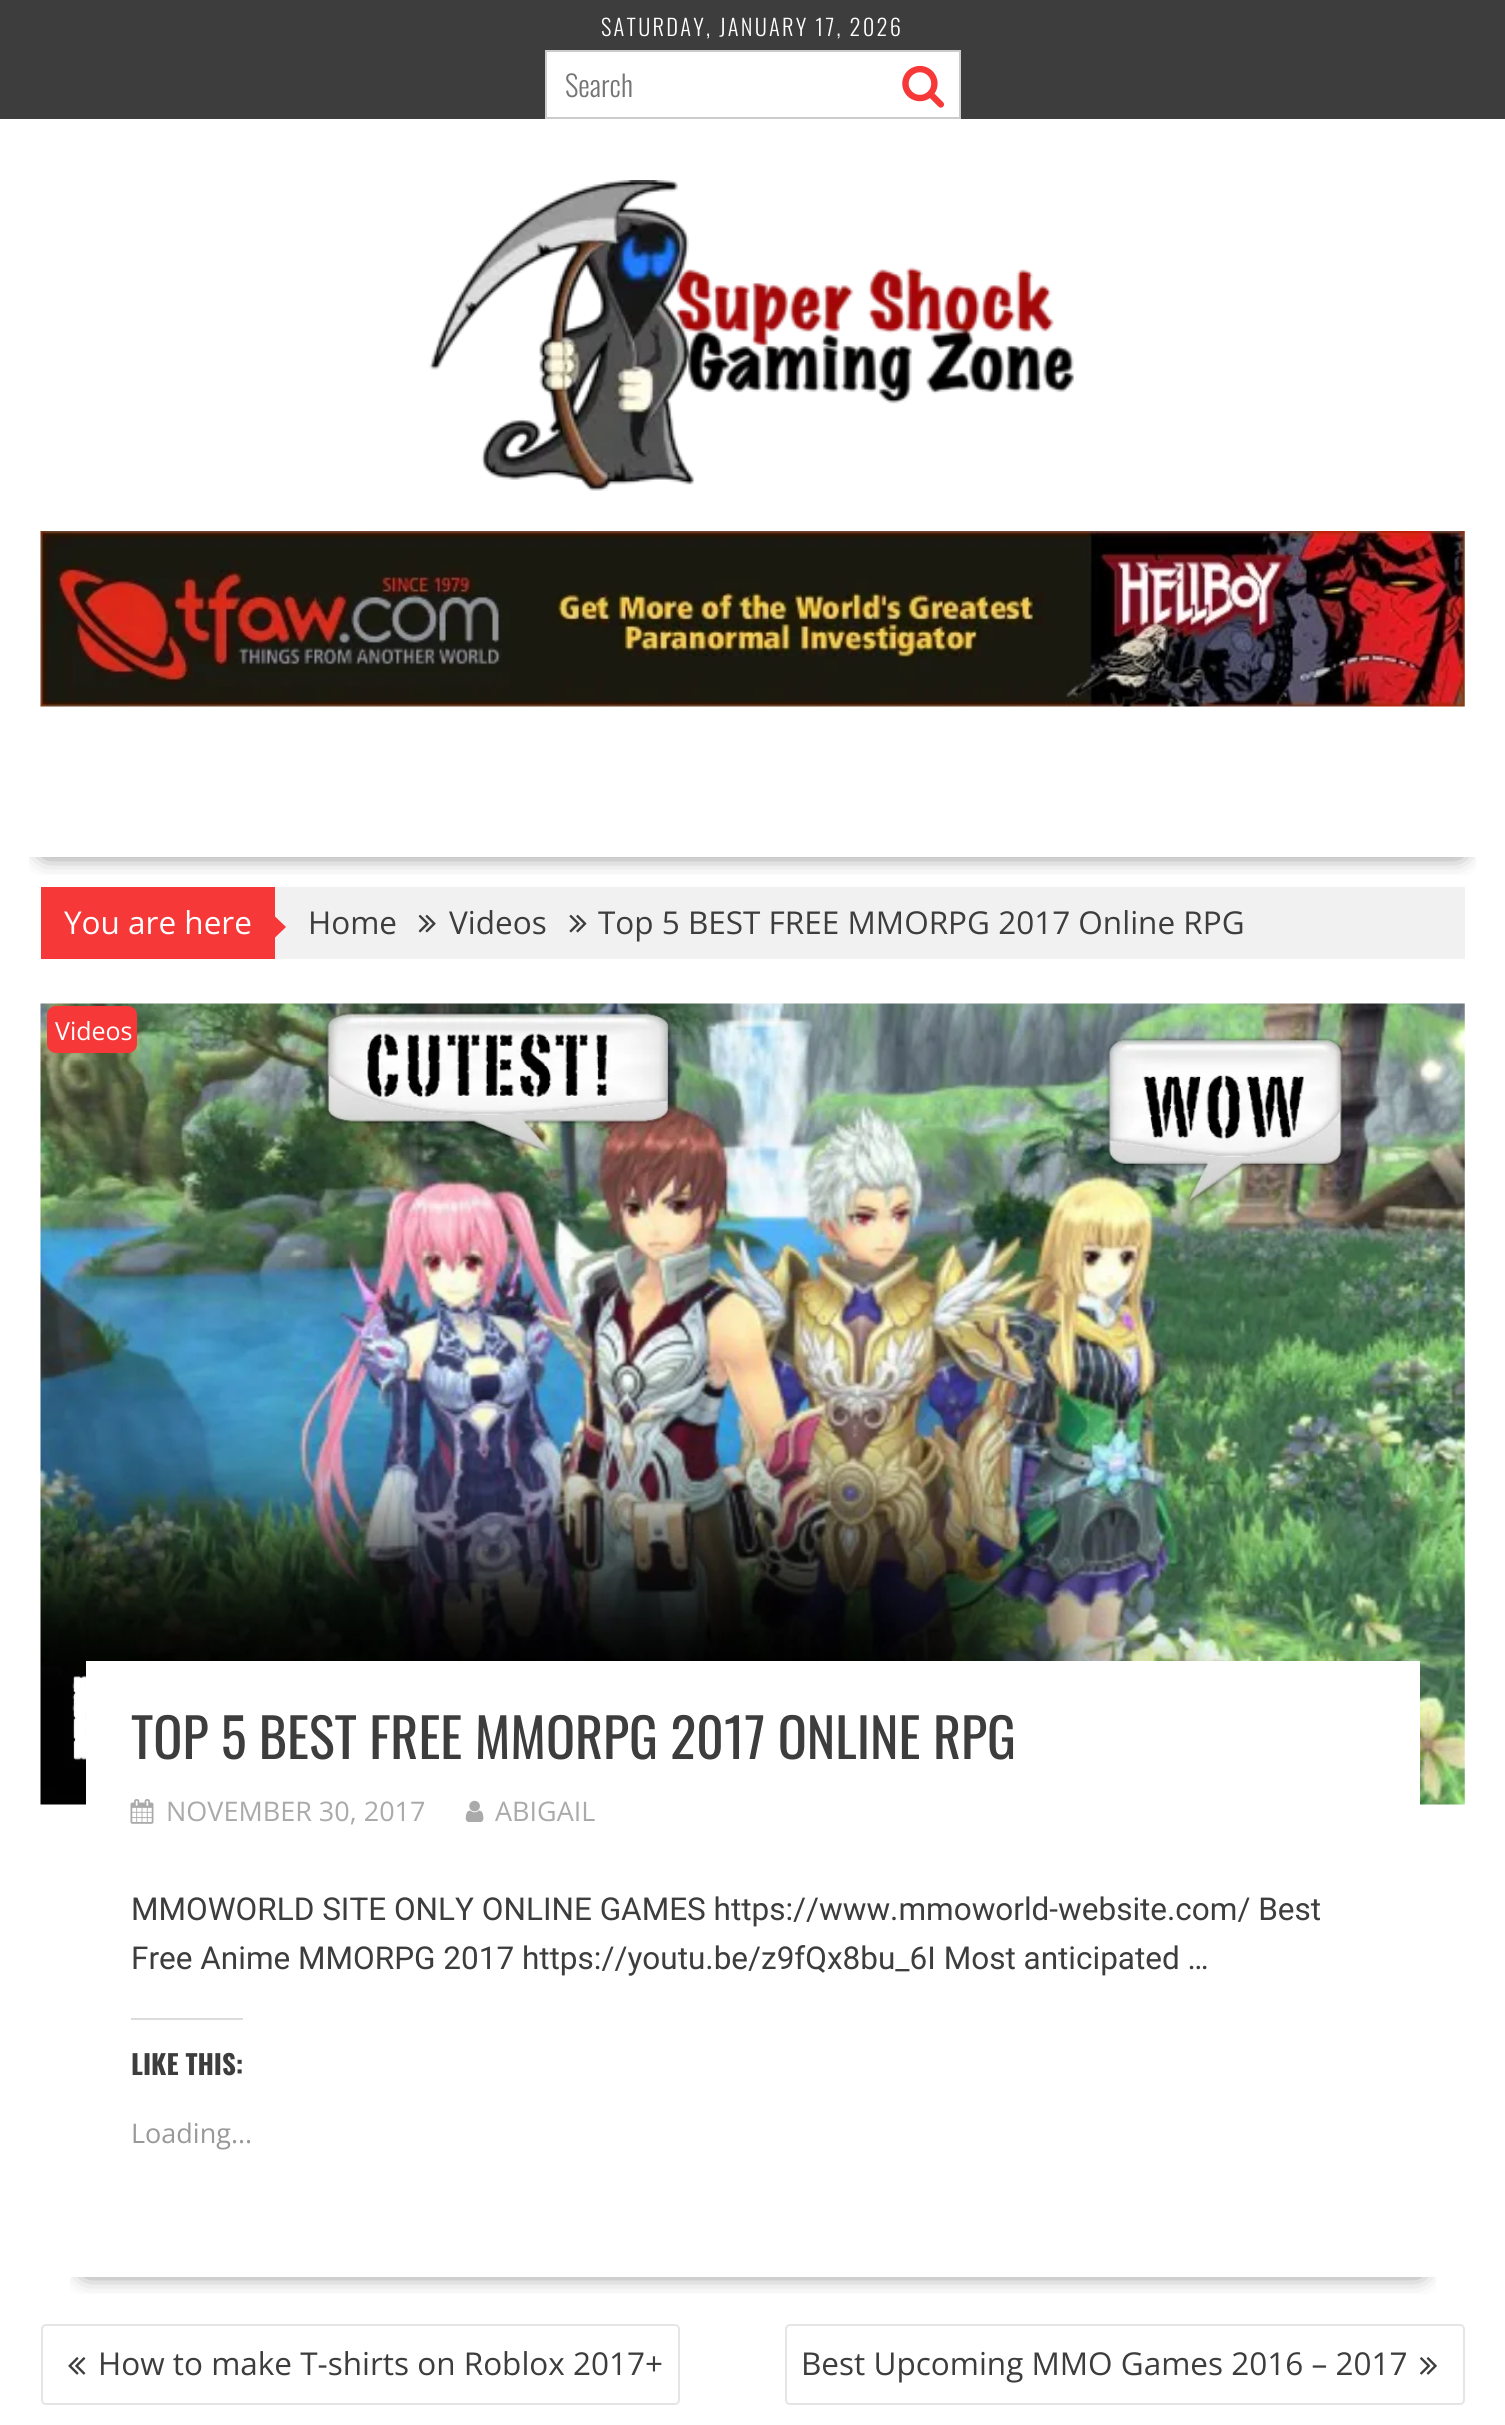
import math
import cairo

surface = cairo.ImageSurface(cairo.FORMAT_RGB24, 1505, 2425)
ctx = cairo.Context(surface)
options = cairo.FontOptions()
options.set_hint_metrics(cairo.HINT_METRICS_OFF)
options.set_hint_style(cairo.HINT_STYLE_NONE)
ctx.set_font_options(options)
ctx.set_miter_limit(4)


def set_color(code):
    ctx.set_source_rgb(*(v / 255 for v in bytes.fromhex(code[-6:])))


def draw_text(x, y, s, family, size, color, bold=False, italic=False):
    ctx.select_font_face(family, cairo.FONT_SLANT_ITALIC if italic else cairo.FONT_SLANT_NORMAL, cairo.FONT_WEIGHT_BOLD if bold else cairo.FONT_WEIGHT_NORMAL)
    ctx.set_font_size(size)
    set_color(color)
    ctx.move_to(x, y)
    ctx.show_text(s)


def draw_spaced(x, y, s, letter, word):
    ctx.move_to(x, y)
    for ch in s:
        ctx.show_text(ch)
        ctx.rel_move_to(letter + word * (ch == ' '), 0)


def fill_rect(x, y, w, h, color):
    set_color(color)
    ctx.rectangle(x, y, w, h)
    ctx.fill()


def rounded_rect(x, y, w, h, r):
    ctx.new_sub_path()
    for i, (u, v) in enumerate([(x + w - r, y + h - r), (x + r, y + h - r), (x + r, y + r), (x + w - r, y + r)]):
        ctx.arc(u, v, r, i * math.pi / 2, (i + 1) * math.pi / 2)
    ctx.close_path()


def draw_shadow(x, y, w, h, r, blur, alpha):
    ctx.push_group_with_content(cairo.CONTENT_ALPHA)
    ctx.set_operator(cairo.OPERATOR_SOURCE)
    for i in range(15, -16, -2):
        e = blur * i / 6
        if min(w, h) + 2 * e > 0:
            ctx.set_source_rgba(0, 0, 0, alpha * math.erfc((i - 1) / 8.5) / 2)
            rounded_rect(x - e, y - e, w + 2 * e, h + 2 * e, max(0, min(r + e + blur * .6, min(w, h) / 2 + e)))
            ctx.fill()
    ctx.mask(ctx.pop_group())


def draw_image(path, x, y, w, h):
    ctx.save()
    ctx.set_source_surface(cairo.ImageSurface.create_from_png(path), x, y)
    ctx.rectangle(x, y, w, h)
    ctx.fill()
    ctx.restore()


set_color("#ffffff")
ctx.paint()
fill_rect(0, 0, 1505, 119, "#3d3d3d")
ctx.select_font_face("Oswald Light")
ctx.set_font_size(22.5)
set_color("#ffffff")
draw_spaced(601, 36, "SATURDAY, JANUARY 17, 2026", 2.25, 0)
ctx.rectangle(546, 51, 414, 67)
ctx.fill_preserve()
set_color("#cccccc")
ctx.stroke()
draw_text(565, 97, "Search", "Oswald Light", 29, "#757575")
draw_image("assets/img1.png", 902, 65, 42, 43)
draw_image("assets/img2.png", 429, 180, 645, 311)
draw_image("assets/img3.png", 40, 531, 1425, 176)
fill_rect(275, 887, 1190, 72, "#f1f1f1")
ctx.save()
ctx.rectangle(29, 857, 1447, 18)
ctx.clip()
set_color("#000000")
draw_shadow(45, 824, 1415, 27, 0, 12.5, 0.75)
ctx.restore()
fill_rect(41, 887, 234, 72, "#f73838")
draw_text(64, 934, "You are here", "Open Sans", 31.5, "#ffffff")
set_color("#f73838")
ctx.new_path()
ctx.move_to(274.5, 938)
ctx.line_to(274.5, 916)
ctx.line_to(286, 927)
ctx.close_path()
ctx.fill()
draw_text(308, 934, "Home", "Open Sans", 31.5, "#3d3d3d")
draw_image("assets/img4.png", 418, 914, 18, 19)
draw_text(449, 934, "Videos", "Open Sans", 31.5, "#3d3d3d")
draw_image("assets/img5.png", 569, 914, 18, 19)
draw_text(598, 934, "Top 5 BEST FREE MMORPG 2017 Online RPG", "Open Sans", 31.5, "#3d3d3d")
ctx.save()
ctx.rectangle(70, 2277, 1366, 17)
ctx.clip()
set_color("#000000")
draw_shadow(86, 1087, 1334, 1183, 0, 12.5, 0.75)
ctx.restore()
draw_image("assets/img6.png", 40, 1003, 1425, 802)
set_color("#f73838")
rounded_rect(47, 1006, 90, 47, 9)
ctx.fill()
draw_text(55, 1040, "Videos", "Open Sans", 25, "#ffffff")
fill_rect(86, 1661, 1334, 144, "#ffffff")
draw_text(131, 1759, "TOP 5 BEST FREE MMORPG 2017 ONLINE RPG", "Oswald", 54, "#3d3d3d")
draw_image("assets/img7.png", 130, 1799, 24, 25)
draw_text(166, 1821, "NOVEMBER 30, 2017", "Open Sans", 27, "#aaaaaa")
draw_image("assets/img8.png", 465, 1800, 19, 22)
draw_text(495, 1821, "ABIGAIL", "Open Sans", 27, "#aaaaaa")
draw_text(131, 1920, "MMOWORLD SITE ONLY ONLINE GAMES https://www.mmoworld-website.com/ Best", "Roboto", 31.5, "#3d3d3d")
draw_text(131, 1969, "Free Anime MMORPG 2017 https://youtu.be/z9fQx8bu_6I Most anticipated …", "Roboto", 31.5, "#3d3d3d")
fill_rect(131, 2018, 112, 2, "#dcdcde")
draw_text(131, 2075, "LIKE THIS:", "Oswald", 27, "#3d3d3d", bold=True)
draw_text(131, 2143, "Loading...", "Open Sans", 27, "#999999")
rounded_rect(42, 2325, 637, 79, 4)
set_color("#e5e5e5")
ctx.stroke()
draw_image("assets/img9.png", 68, 2357, 18, 18)
draw_text(98, 2375, "How to make T-shirts on Roblox 2017+", "Open Sans", 31.5, "#3d3d3d")
rounded_rect(786, 2325, 678, 79, 4)
set_color("#e5e5e5")
ctx.stroke()
draw_text(801, 2375, "Best Upcoming MMO Games 2016 – 2017", "Open Sans", 31.5, "#3d3d3d")
draw_image("assets/img10.png", 1420, 2357, 17, 18)
surface.write_to_png("output.png")
